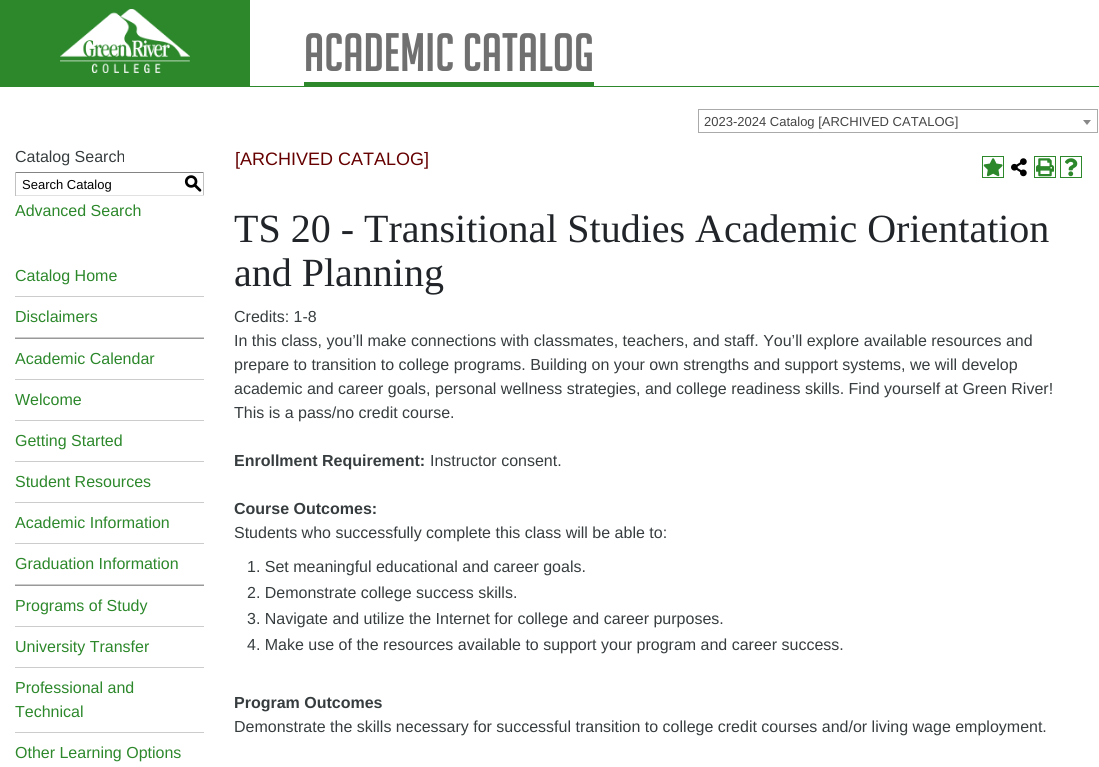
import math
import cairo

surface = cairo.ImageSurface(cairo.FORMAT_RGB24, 1099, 767)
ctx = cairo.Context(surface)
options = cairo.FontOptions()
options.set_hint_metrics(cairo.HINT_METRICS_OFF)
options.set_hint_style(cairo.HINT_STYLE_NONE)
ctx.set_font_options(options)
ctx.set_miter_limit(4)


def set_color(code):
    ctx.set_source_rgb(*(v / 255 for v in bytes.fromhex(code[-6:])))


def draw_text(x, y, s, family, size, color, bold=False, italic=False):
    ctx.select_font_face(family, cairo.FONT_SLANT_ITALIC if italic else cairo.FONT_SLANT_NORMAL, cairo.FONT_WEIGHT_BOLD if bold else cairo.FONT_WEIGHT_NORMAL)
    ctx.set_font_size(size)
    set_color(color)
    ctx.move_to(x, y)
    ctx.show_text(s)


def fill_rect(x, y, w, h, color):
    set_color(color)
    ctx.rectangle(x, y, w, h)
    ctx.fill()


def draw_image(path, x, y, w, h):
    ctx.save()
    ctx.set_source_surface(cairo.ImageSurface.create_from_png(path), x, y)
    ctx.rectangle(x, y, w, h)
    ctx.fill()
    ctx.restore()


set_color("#ffffff")
ctx.paint()
fill_rect(0, 86, 1099, 1, "#2c882b")
fill_rect(0, 0, 250, 86, "#2c882b")
draw_image("assets/img1.png", 60, 9, 130, 64)
fill_rect(304, 82, 290, 4, "#2c882b")
draw_text(304, 71, "Academic Catalog", "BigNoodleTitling", 52.75, "#707070")
ctx.rectangle(698.5, 109.5, 399, 23)
set_color("#aaaaaa")
ctx.set_line_width(1)
ctx.stroke()
draw_text(704, 126, "2023-2024 Catalog [ARCHIVED CATALOG]", "Liberation Sans", 13, "#444444")
set_color("#888888")
ctx.new_path()
ctx.move_to(1083, 120)
ctx.line_to(1091, 120)
ctx.line_to(1087, 125)
ctx.close_path()
ctx.fill()
draw_text(15, 162, "Catalog Search", "Liberation Sans", 16, "#373d3f")
fill_rect(15, 172, 189, 1, "#848484")
fill_rect(203, 172, 1, 24, "#c1c1c1")
fill_rect(15, 195, 189, 1, "#e1e1e1")
fill_rect(15, 172, 1, 24, "#c1c1c1")
draw_text(22, 189, "Search Catalog", "Liberation Sans", 13, "#000000")
draw_text(184, 189, "S", "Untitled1 Medium", 18, "#000000")
draw_text(15, 216, "Advanced Search", "Liberation Sans", 16, "#2c882b")
fill_rect(15, 296, 189, 1, "#cccccc")
draw_text(15, 281, "Catalog Home", "Liberation Sans", 16, "#2c882b")
fill_rect(15, 337, 189, 1, "#cccccc")
draw_text(15, 322, "Disclaimers", "Liberation Sans", 16, "#2c882b")
fill_rect(15, 338, 189, 1, "#999999")
fill_rect(15, 379, 189, 1, "#cccccc")
draw_text(15, 364, "Academic Calendar", "Liberation Sans", 16, "#2c882b")
fill_rect(15, 420, 189, 1, "#cccccc")
draw_text(15, 405, "Welcome", "Liberation Sans", 16, "#2c882b")
fill_rect(15, 461, 189, 1, "#cccccc")
draw_text(15, 446, "Getting Started", "Liberation Sans", 16, "#2c882b")
fill_rect(15, 502, 189, 1, "#cccccc")
draw_text(15, 487, "Student Resources", "Liberation Sans", 16, "#2c882b")
fill_rect(15, 543, 189, 1, "#cccccc")
draw_text(15, 528, "Academic Information", "Liberation Sans", 16, "#2c882b")
fill_rect(15, 584, 189, 1, "#cccccc")
draw_text(15, 569, "Graduation Information", "Liberation Sans", 16, "#2c882b")
fill_rect(15, 585, 189, 1, "#999999")
fill_rect(15, 626, 189, 1, "#cccccc")
draw_text(15, 611, "Programs of Study", "Liberation Sans", 16, "#2c882b")
fill_rect(15, 667, 189, 1, "#cccccc")
draw_text(15, 652, "University Transfer", "Liberation Sans", 16, "#2c882b")
fill_rect(15, 732, 189, 1, "#cccccc")
draw_text(15, 693, "Professional and", "Liberation Sans", 16, "#2c882b")
draw_text(15, 717, "Technical", "Liberation Sans", 16, "#2c882b")
draw_text(15, 758, "Other Learning Options", "Liberation Sans", 16, "#2c882b")
draw_text(235, 165, "[ARCHIVED CATALOG]", "Liberation Sans", 18, "#660000")
ctx.rectangle(982.5, 156.5, 21, 21)
set_color("#2c882b")
ctx.stroke()
draw_image("assets/img2.png", 983, 158, 20, 19)
draw_image("assets/img3.png", 1011, 158, 16, 19)
ctx.rectangle(1034.5, 156.5, 21, 21)
ctx.stroke()
draw_image("assets/img4.png", 1036, 158, 18, 19)
ctx.rectangle(1060.5, 156.5, 21, 21)
ctx.stroke()
draw_image("assets/img5.png", 1065, 158, 13, 19)
draw_text(234, 242, "TS 20 - Transitional Studies Academic Orientation", "Liberation Serif", 40, "#212529")
draw_text(234, 286, "and Planning", "Liberation Serif", 40, "#212529")
draw_text(234, 322, "Credits: 1-8", "Liberation Sans", 16, "#373d3f")
draw_text(234, 346, "In this class, you’ll make connections with classmates, teachers, and staff. You’ll explore available resources and", "Liberation Sans", 16, "#373d3f")
draw_text(234, 370, "prepare to transition to college programs. Building on your own strengths and support systems, we will develop", "Liberation Sans", 16, "#373d3f")
draw_text(234, 394, "academic and career goals, personal wellness strategies, and college readiness skills. Find yourself at Green River!", "Liberation Sans", 16, "#373d3f")
draw_text(234, 418, "This is a pass/no credit course.", "Liberation Sans", 16, "#373d3f")
draw_text(234, 466, "Enrollment Requirement:", "Liberation Sans", 16, "#373d3f", bold=True)
draw_text(430, 466, "Instructor consent.", "Liberation Sans", 16, "#373d3f")
draw_text(234, 514, "Course Outcomes:", "Liberation Sans", 16, "#373d3f", bold=True)
draw_text(234, 538, "Students who successfully complete this class will be able to:", "Liberation Sans", 16, "#373d3f")
draw_text(247, 572, "1. Set meaningful educational and career goals.", "Liberation Sans", 16, "#373d3f")
draw_text(247, 598, "2. Demonstrate college success skills.", "Liberation Sans", 16, "#373d3f")
draw_text(247, 624, "3. Navigate and utilize the Internet for college and career purposes.", "Liberation Sans", 16, "#373d3f")
draw_text(247, 650, "4. Make use of the resources available to support your program and career success.", "Liberation Sans", 16, "#373d3f")
draw_text(234, 708, "Program Outcomes", "Liberation Sans", 16, "#373d3f", bold=True)
draw_text(234, 732, "Demonstrate the skills necessary for successful transition to college credit courses and/or living wage employment.", "Liberation Sans", 16, "#373d3f")
surface.write_to_png("output.png")
